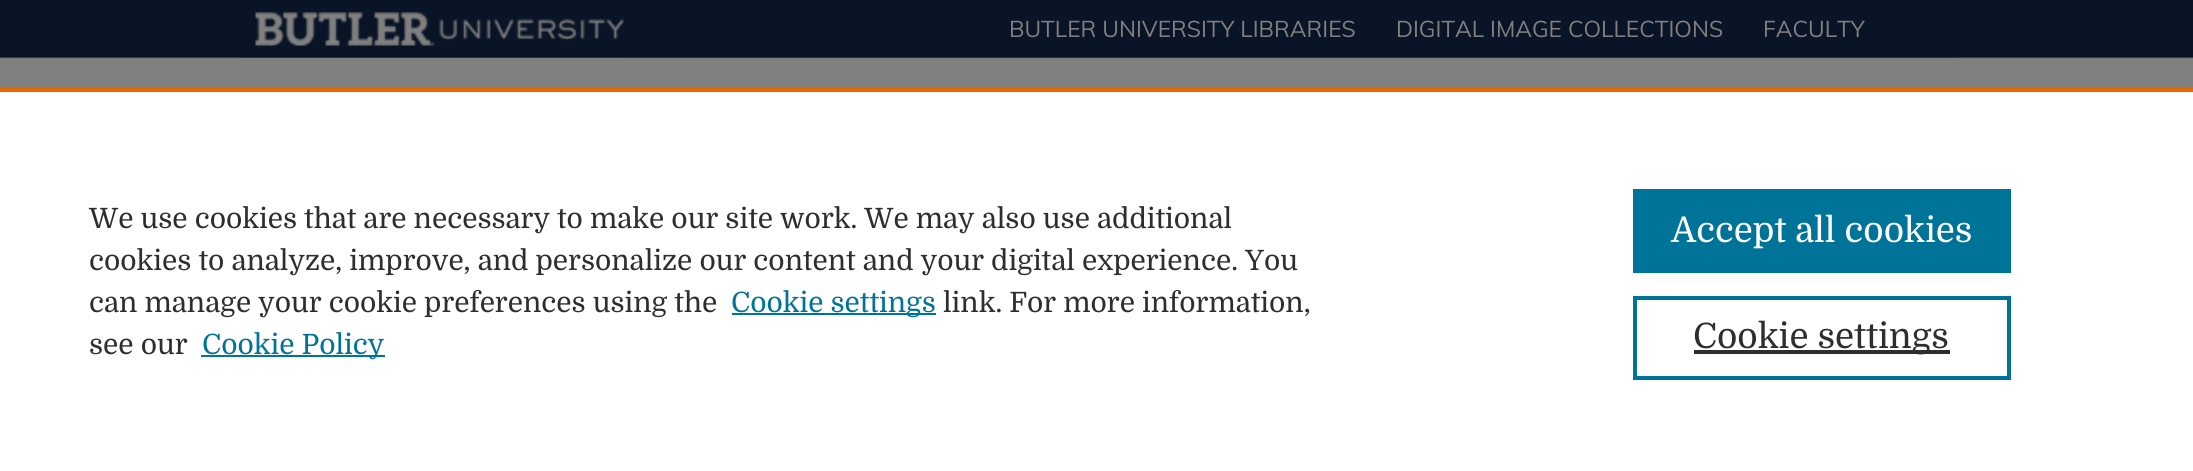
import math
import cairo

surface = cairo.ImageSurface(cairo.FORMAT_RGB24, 2193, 471)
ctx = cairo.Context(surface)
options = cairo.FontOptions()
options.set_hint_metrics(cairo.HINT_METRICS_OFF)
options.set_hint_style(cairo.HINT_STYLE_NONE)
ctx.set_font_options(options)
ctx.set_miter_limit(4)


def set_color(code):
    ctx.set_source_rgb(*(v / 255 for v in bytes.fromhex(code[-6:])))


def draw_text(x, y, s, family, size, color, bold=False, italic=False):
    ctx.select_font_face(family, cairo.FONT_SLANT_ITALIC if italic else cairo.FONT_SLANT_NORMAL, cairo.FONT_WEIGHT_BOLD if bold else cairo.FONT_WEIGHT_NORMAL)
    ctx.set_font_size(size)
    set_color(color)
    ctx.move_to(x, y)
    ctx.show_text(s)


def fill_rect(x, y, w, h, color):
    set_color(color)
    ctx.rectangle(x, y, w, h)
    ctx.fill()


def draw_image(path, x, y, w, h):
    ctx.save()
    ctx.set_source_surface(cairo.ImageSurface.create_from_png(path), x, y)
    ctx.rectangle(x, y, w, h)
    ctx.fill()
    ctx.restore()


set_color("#ffffff")
ctx.paint()
draw_image("assets/img1.png", 0, 0, 2193, 88)
fill_rect(240, 57, 1715, 1, "#091526")
draw_image("assets/img2.png", 239, 11, 385, 47)
draw_text(1009, 37, "BUTLER UNIVERSITY LIBRARIES", "Muli", 22.75, "#808080")
draw_text(1396, 37, "DIGITAL IMAGE COLLECTIONS", "Muli", 22.75, "#808080")
draw_text(1763, 37, "FACULTY", "Muli", 22.75, "#808080")
draw_image("assets/img3.png", 239, 57, 1716, 31)
fill_rect(0, 88, 2193, 4, "#eb6500")
draw_text(89, 228, "We use cookies that are necessary to make our site work. We may also use additional", "Domine", 28, "#2e2e2e")
draw_text(89, 270, "cookies to analyze, improve, and personalize our content and your digital experience. You", "Domine", 28, "#2e2e2e")
draw_text(89, 312, "can manage your cookie preferences using the", "Domine", 28, "#2e2e2e")
fill_rect(732, 313, 204, 2, "#007398")
draw_text(731, 312, "Cookie settings", "Domine", 28, "#007398")
draw_text(943, 312, "link. For more information,", "Domine", 28, "#2e2e2e")
draw_text(89, 354, "see our", "Domine", 28, "#2e2e2e")
fill_rect(201, 355, 184, 2, "#007398")
draw_text(202, 354, "Cookie Policy", "Domine", 28, "#007398")
fill_rect(1633, 189, 378, 84, "#007398")
draw_text(1671, 242, "Accept all cookies", "Domine", 35, "#ffffff")
ctx.rectangle(1635, 298, 374, 80)
set_color("#007398")
ctx.set_line_width(4)
ctx.stroke()
fill_rect(1694, 350, 256, 4, "#2e2e2e")
draw_text(1693, 348, "Cookie settings", "Domine", 35, "#2e2e2e")
surface.write_to_png("output.png")
